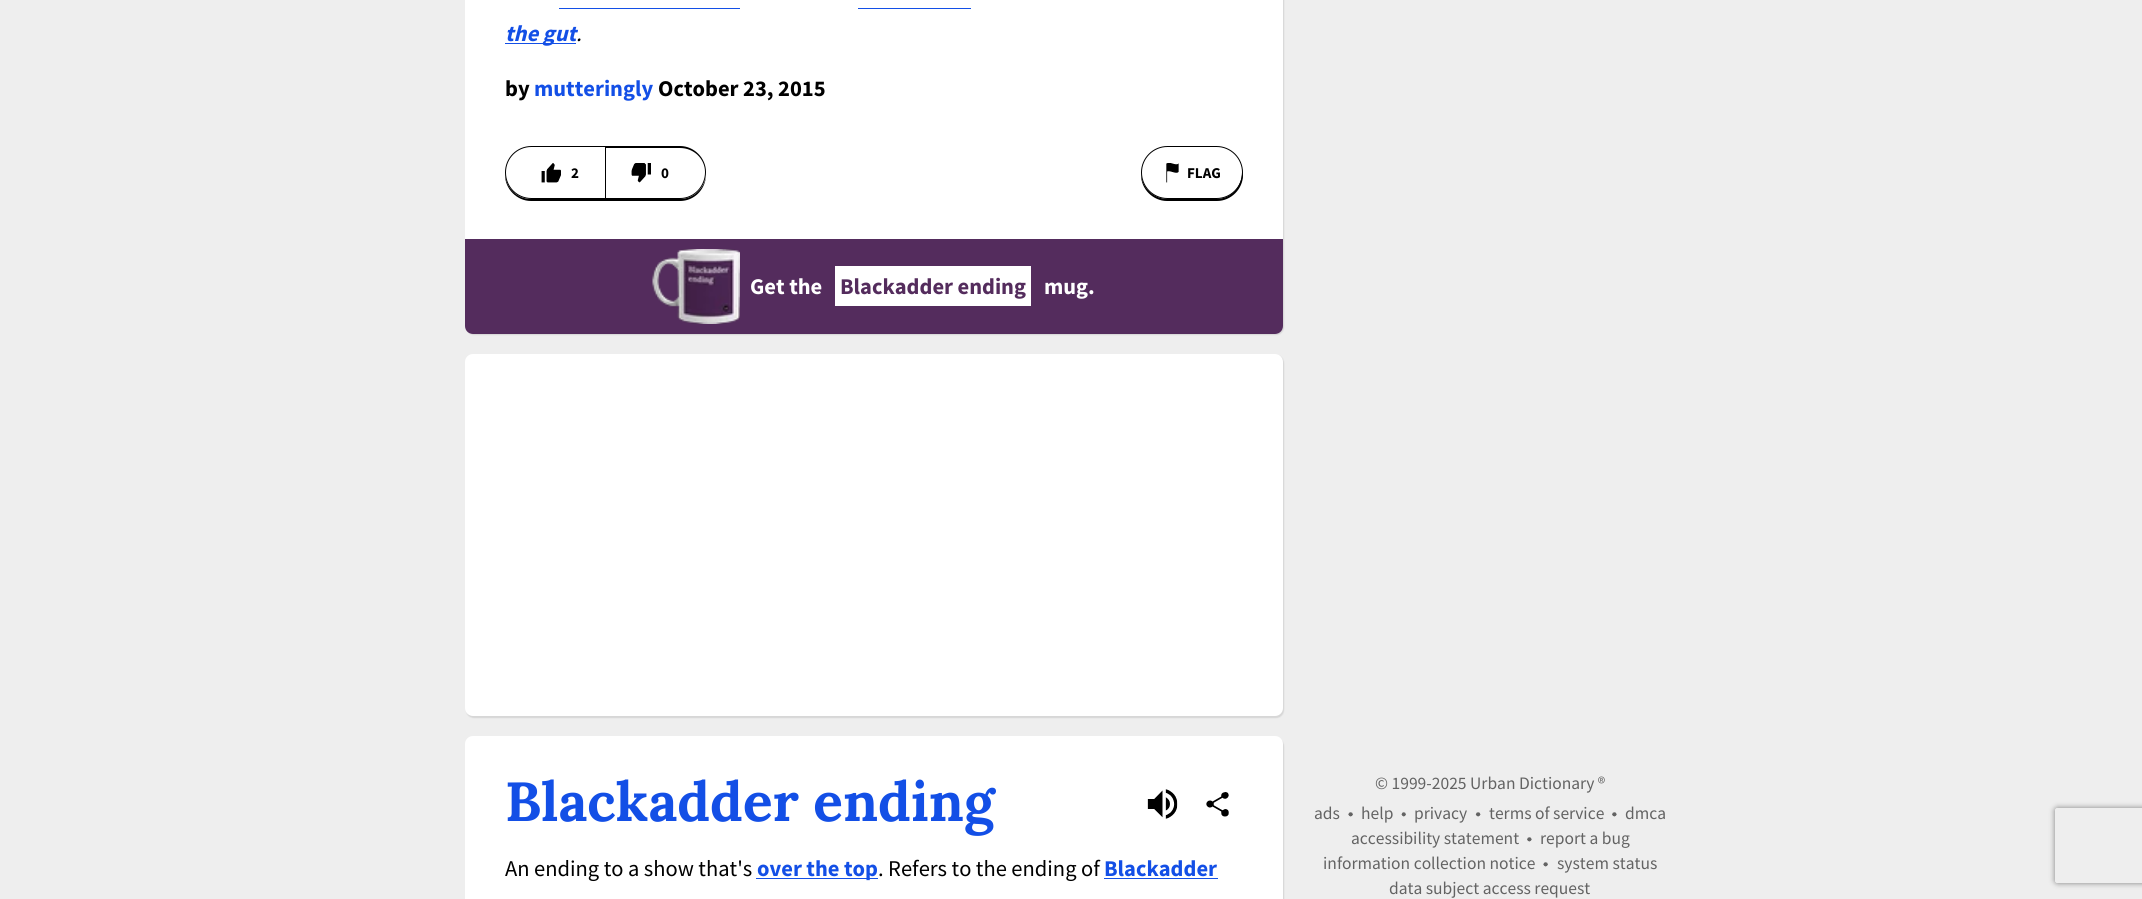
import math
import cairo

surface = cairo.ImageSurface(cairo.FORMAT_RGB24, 2142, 899)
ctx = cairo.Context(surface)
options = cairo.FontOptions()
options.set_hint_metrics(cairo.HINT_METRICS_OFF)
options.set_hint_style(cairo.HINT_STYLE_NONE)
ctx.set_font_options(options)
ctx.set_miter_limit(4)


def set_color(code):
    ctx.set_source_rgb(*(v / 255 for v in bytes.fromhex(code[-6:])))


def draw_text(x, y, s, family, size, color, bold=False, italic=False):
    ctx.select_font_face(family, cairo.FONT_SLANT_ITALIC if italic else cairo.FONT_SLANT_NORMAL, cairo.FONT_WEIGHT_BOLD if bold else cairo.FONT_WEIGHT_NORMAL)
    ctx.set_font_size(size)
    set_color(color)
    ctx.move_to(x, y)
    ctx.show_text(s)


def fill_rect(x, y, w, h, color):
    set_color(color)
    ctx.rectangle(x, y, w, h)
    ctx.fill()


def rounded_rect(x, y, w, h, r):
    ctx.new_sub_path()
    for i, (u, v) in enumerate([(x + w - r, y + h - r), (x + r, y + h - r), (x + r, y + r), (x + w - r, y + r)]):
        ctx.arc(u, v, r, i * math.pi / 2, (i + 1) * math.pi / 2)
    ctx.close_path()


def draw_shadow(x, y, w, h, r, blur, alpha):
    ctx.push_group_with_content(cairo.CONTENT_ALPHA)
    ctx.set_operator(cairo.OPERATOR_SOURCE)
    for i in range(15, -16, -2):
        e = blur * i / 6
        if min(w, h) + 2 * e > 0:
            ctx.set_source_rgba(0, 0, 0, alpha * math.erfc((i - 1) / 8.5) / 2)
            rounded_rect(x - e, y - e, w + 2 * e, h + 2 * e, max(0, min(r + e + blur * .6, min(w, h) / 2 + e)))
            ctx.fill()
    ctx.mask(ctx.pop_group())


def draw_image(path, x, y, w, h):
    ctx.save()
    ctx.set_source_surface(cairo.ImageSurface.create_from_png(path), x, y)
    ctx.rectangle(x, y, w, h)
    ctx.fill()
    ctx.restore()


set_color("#eeeeee")
ctx.paint()
set_color("#000000")
draw_shadow(466, -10, 818, 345, 8, 0.5, 0.1)
set_color("#ffffff")
rounded_rect(465, -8, 818, 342, 8)
ctx.fill()
fill_rect(559, 8, 181, 1, "#134fe6")
fill_rect(858, 8, 113, 1, "#134fe6")
fill_rect(505, 43, 71, 1, "#134fe6")
draw_text(505, 41, "the gut", "Source Sans Pro", 22.5, "#134fe6", bold=True, italic=True)
draw_text(576, 41, ".", "Source Sans Pro", 22.5, "#000000", italic=True)
draw_text(505, 96, "by", "Source Sans Pro", 22.5, "#000000", bold=True)
draw_text(534, 96, "mutteringly", "Source Sans Pro", 22.5, "#134fe6", bold=True)
draw_text(658, 96, "October 23, 2015", "Source Sans Pro", 22.5, "#000000", bold=True)
ctx.new_path()
ctx.move_to(505, 174)
ctx.line_to(505, 175)
ctx.curve_to(505, 189, 517, 201, 531, 201)
ctx.line_to(606, 201)
ctx.line_to(606, 199)
ctx.line_to(531, 199)
ctx.curve_to(517, 199, 506, 188, 505, 174)
ctx.close_path()
ctx.fill()
ctx.new_path()
ctx.move_to(531.5, 146.5)
ctx.line_to(605.5, 146.5)
ctx.line_to(605.5, 198.5)
ctx.line_to(531.5, 198.5)
ctx.curve_to(517, 198.5, 505.5, 187, 505.5, 172.5)
ctx.curve_to(505.5, 158, 517, 146.5, 531.5, 146.5)
ctx.close_path()
ctx.set_line_width(1)
ctx.stroke()
draw_image("assets/img1.png", 541, 163, 20, 20)
draw_text(571, 178, "2", "Source Sans Pro", 15, "#000000", bold=True)
ctx.new_path()
ctx.move_to(606, 149)
ctx.line_to(606, 201)
ctx.line_to(680, 201)
ctx.curve_to(694, 201, 705, 190, 706, 176)
ctx.curve_to(704, 189, 693, 199, 680, 199)
ctx.line_to(606, 199)
ctx.close_path()
ctx.fill()
ctx.set_fill_rule(cairo.FILL_RULE_EVEN_ODD)
ctx.new_path()
ctx.move_to(606, 146)
ctx.line_to(680, 146)
ctx.curve_to(694, 146, 706, 158, 706, 172)
ctx.curve_to(706, 187, 694, 199, 680, 199)
ctx.line_to(606, 199)
ctx.close_path()
ctx.move_to(606, 148)
ctx.line_to(680, 148)
ctx.curve_to(694, 148, 705, 159, 705, 172)
ctx.curve_to(705, 186, 694, 198, 680, 198)
ctx.line_to(606, 198)
ctx.close_path()
ctx.fill()
draw_image("assets/img2.png", 631, 163, 20, 20)
draw_text(661, 178, "0", "Source Sans Pro", 15, "#000000", bold=True)
ctx.set_fill_rule(cairo.FILL_RULE_WINDING)
ctx.new_path()
ctx.move_to(1141, 171)
ctx.line_to(1141, 175)
ctx.curve_to(1141, 189, 1153, 201, 1167, 201)
ctx.line_to(1217, 201)
ctx.curve_to(1231, 201, 1243, 189, 1243, 175)
ctx.line_to(1242, 169)
ctx.line_to(1242, 172)
ctx.curve_to(1242, 187, 1231, 199, 1216, 199)
ctx.line_to(1168, 199)
ctx.curve_to(1153, 199, 1141, 187, 1141, 172)
ctx.close_path()
ctx.fill()
rounded_rect(1141.5, 146.5, 101, 52, 26)
ctx.stroke()
draw_image("assets/img3.png", 1166, 163, 13, 20)
draw_text(1187, 178, "FLAG", "Source Sans Pro", 15, "#000000", bold=True)
set_color("#542c5d")
ctx.new_path()
ctx.move_to(465, 239)
ctx.line_to(1283, 239)
ctx.line_to(1283, 326)
ctx.curve_to(1283, 330.5, 1279.5, 334, 1275, 334)
ctx.line_to(473, 334)
ctx.curve_to(468.5, 334, 465, 330.5, 465, 326)
ctx.close_path()
ctx.fill()
draw_image("assets/img4.png", 652, 249, 88, 75)
draw_text(750, 294, "Get the", "Source Sans Pro", 22.5, "#ffffff", bold=True)
fill_rect(835, 266, 196, 40, "#ffffff")
draw_text(840, 294, "Blackadder ending", "Source Sans Pro", 22.5, "#542c5d", bold=True)
draw_text(1044, 294, "mug.", "Source Sans Pro", 22.5, "#ffffff", bold=True)
set_color("#000000")
draw_shadow(466, 355, 818, 363, 8, 0.5, 0.1)
set_color("#ffffff")
rounded_rect(465, 354, 818, 362, 8)
ctx.fill()
set_color("#000000")
draw_shadow(466, 738, 818, 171, 8, 0.5, 0.1)
set_color("#ffffff")
rounded_rect(465, 736, 818, 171, 8)
ctx.fill()
draw_text(505, 821, "Blackadder ending", "Lora", 55, "#134fe6", bold=True)
draw_image("assets/img5.png", 1147, 789, 31, 30)
draw_image("assets/img6.png", 1206, 792, 23, 25)
draw_text(505, 876, "An ending to a show that's", "Source Sans Pro", 22.5, "#000000")
fill_rect(756, 878, 122, 1, "#134fe6")
draw_text(757, 876, "over the top", "Source Sans Pro", 22.5, "#134fe6", bold=True)
draw_text(878, 876, ". Refers to the ending of", "Source Sans Pro", 22.5, "#000000")
draw_text(1104, 876, "Blackadder", "Source Sans Pro", 22.5, "#134fe6", bold=True)
fill_rect(1104, 878, 114, 1, "#134fe6")
draw_text(1375, 789, "© 1999-2025 Urban Dictionary ®", "Source Sans Pro", 17.5, "#636363")
draw_text(1314, 819, "ads", "Source Sans Pro", 17.5, "#636363")
draw_image("assets/img7.png", 1348, 812, 5, 5)
draw_text(1361, 819, "help", "Source Sans Pro", 17.5, "#636363")
draw_image("assets/img8.png", 1401, 812, 5, 5)
draw_text(1414, 819, "privacy", "Source Sans Pro", 17.5, "#636363")
draw_image("assets/img9.png", 1475, 812, 6, 5)
draw_text(1489, 819, "terms of service", "Source Sans Pro", 17.5, "#636363")
draw_image("assets/img10.png", 1612, 812, 5, 5)
draw_text(1625, 819, "dmca", "Source Sans Pro", 17.5, "#636363")
draw_text(1351, 844, "accessibility statement", "Source Sans Pro", 17.5, "#636363")
draw_image("assets/img10.png", 1527, 837, 5, 5)
draw_text(1540, 844, "report a bug", "Source Sans Pro", 17.5, "#636363")
draw_text(1323, 869, "information collection notice", "Source Sans Pro", 17.5, "#636363")
draw_image("assets/img7.png", 1543, 862, 5, 5)
draw_text(1557, 869, "system status", "Source Sans Pro", 17.5, "#636363")
draw_text(1389, 894, "data subject access request", "Source Sans Pro", 17.5, "#636363")
ctx.save()
ctx.set_fill_rule(cairo.FILL_RULE_EVEN_ODD)
ctx.new_path()
ctx.move_to(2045, 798)
ctx.line_to(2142, 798)
ctx.line_to(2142, 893)
ctx.line_to(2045, 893)
ctx.close_path()
ctx.move_to(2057.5, 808)
ctx.line_to(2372.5, 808)
ctx.curve_to(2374, 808, 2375, 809, 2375, 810.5)
ctx.line_to(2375, 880.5)
ctx.curve_to(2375, 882, 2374, 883, 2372.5, 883)
ctx.line_to(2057.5, 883)
ctx.curve_to(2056, 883, 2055, 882, 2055, 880.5)
ctx.line_to(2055, 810.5)
ctx.curve_to(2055, 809, 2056, 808, 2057.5, 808)
ctx.close_path()
ctx.clip()
set_color("#808080")
draw_shadow(2055, 808, 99, 75, 2.5, 3, 1)
ctx.restore()
surface.write_to_png("output.png")
